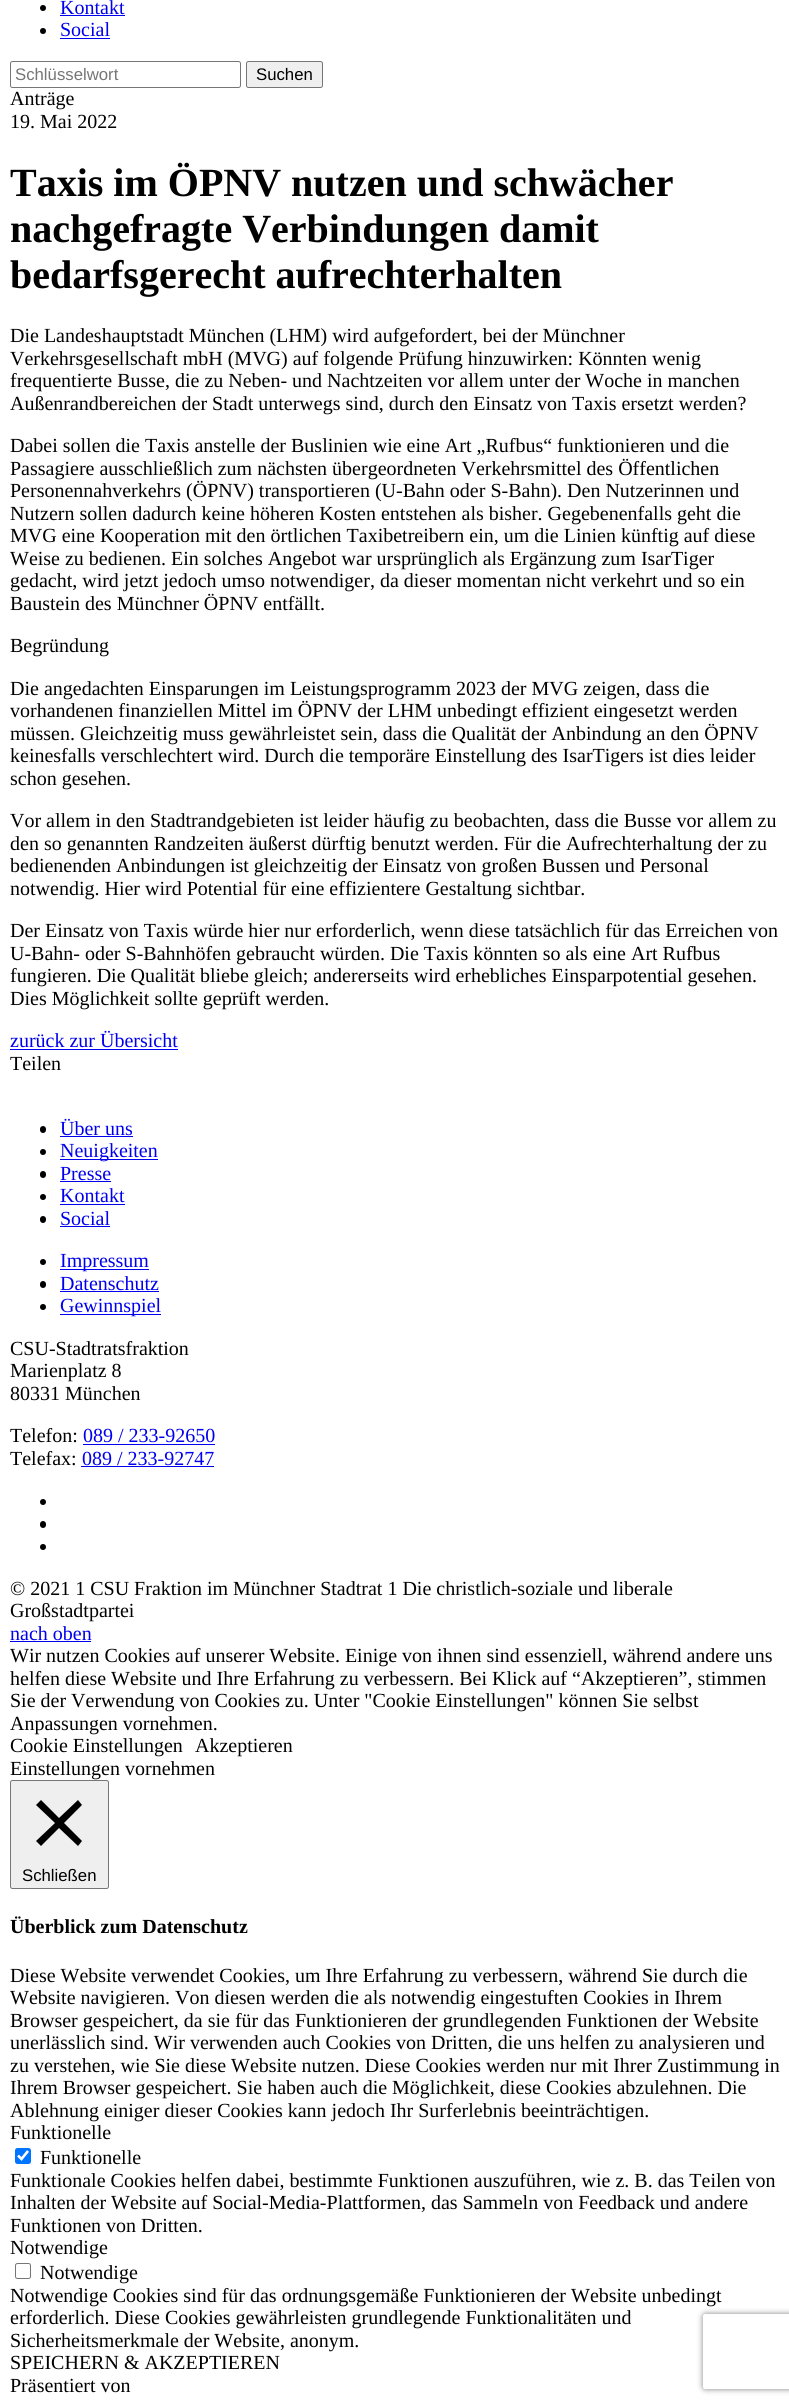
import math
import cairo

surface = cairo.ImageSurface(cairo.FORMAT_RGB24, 789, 2406)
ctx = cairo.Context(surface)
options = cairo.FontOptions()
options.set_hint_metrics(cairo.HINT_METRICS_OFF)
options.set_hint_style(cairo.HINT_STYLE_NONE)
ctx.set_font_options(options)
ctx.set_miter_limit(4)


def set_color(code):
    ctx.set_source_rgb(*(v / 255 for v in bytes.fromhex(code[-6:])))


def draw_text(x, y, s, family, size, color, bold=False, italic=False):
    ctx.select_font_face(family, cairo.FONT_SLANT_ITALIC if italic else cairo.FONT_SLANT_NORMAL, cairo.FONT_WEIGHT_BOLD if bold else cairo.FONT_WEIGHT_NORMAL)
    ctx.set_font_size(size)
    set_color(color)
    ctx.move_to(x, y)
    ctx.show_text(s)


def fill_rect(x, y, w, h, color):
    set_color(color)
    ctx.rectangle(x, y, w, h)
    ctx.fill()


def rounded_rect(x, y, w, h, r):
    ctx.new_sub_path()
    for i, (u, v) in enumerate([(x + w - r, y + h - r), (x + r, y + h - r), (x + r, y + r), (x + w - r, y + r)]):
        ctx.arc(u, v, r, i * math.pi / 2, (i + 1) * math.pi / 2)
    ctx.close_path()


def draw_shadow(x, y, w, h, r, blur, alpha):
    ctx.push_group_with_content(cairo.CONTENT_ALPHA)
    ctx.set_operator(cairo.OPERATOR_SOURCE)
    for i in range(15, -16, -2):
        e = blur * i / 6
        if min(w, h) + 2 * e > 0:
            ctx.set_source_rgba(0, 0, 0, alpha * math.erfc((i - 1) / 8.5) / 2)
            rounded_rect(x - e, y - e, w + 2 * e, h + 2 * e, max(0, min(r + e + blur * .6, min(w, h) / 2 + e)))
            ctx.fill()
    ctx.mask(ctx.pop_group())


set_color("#ffffff")
ctx.paint()
set_color("#000000")
ctx.arc(43, 8, 3, 0, 2 * math.pi)
ctx.fill()
draw_text(60, 14, "Kontakt", "Liberation Serif", 20, "#0000ee")
fill_rect(60, 15, 65, 1, "#0000ee")
set_color("#000000")
ctx.new_path()
ctx.arc(43, 31, 3, 0, 2 * math.pi)
ctx.fill()
draw_text(60, 36, "Social", "Liberation Serif", 20, "#0000ee")
fill_rect(60, 38, 50, 1, "#0000ee")
rounded_rect(10.5, 61.5, 230, 26, 2)
set_color("#767676")
ctx.set_line_width(1)
ctx.stroke()
draw_text(15, 80, "Schlüsselwort", "Liberation Sans", 16.75, "#757575")
set_color("#efefef")
rounded_rect(246.5, 61.5, 76, 26, 2)
ctx.fill_preserve()
set_color("#767676")
ctx.stroke()
draw_text(256, 80, "Suchen", "Liberation Sans", 16.75, "#000000")
draw_text(10, 105, "Anträge", "Liberation Serif", 20, "#000000")
draw_text(10, 128, "19. Mai 2022", "Liberation Serif", 20, "#000000")
draw_text(10, 196, "Taxis im ÖPNV nutzen und schwächer", "Liberation Serif", 40, "#000000", bold=True)
draw_text(10, 242, "nachgefragte Verbindungen damit", "Liberation Serif", 40, "#000000", bold=True)
draw_text(10, 288, "bedarfsgerecht aufrechterhalten", "Liberation Serif", 40, "#000000", bold=True)
draw_text(10, 342, "Die Landeshauptstadt München (LHM) wird aufgefordert, bei der Münchner", "Liberation Serif", 20, "#000000")
draw_text(10, 365, "Verkehrsgesellschaft mbH (MVG) auf folgende Prüfung hinzuwirken: Könnten wenig", "Liberation Serif", 20, "#000000")
draw_text(10, 387, "frequentierte Busse, die zu Neben- und Nachtzeiten vor allem unter der Woche in manchen", "Liberation Serif", 20, "#000000")
draw_text(10, 410, "Außenrandbereichen der Stadt unterwegs sind, durch den Einsatz von Taxis ersetzt werden?", "Liberation Serif", 20, "#000000")
draw_text(10, 452, "Dabei sollen die Taxis anstelle der Buslinien wie eine Art „Rufbus“ funktionieren und die", "Liberation Serif", 20, "#000000")
draw_text(10, 475, "Passagiere ausschließlich zum nächsten übergeordneten Verkehrsmittel des Öffentlichen", "Liberation Serif", 20, "#000000")
draw_text(10, 497, "Personennahverkehrs (ÖPNV) transportieren (U-Bahn oder S-Bahn). Den Nutzerinnen und", "Liberation Serif", 20, "#000000")
draw_text(10, 520, "Nutzern sollen dadurch keine höheren Kosten entstehen als bisher. Gegebenenfalls geht die", "Liberation Serif", 20, "#000000")
draw_text(10, 542, "MVG eine Kooperation mit den örtlichen Taxibetreibern ein, um die Linien künftig auf diese", "Liberation Serif", 20, "#000000")
draw_text(10, 565, "Weise zu bedienen. Ein solches Angebot war ursprünglich als Ergänzung zum IsarTiger", "Liberation Serif", 20, "#000000")
draw_text(10, 587, "gedacht, wird jetzt jedoch umso notwendiger, da dieser momentan nicht verkehrt und so ein", "Liberation Serif", 20, "#000000")
draw_text(10, 610, "Baustein des Münchner ÖPNV entfällt.", "Liberation Serif", 20, "#000000")
draw_text(10, 652, "Begründung", "Liberation Serif", 20, "#000000")
draw_text(10, 695, "Die angedachten Einsparungen im Leistungsprogramm 2023 der MVG zeigen, dass die", "Liberation Serif", 20, "#000000")
draw_text(10, 717, "vorhandenen finanziellen Mittel im ÖPNV der LHM unbedingt effizient eingesetzt werden", "Liberation Serif", 20, "#000000")
draw_text(10, 740, "müssen. Gleichzeitig muss gewährleistet sein, dass die Qualität der Anbindung an den ÖPNV", "Liberation Serif", 20, "#000000")
draw_text(10, 762, "keinesfalls verschlechtert wird. Durch die temporäre Einstellung des IsarTigers ist dies leider", "Liberation Serif", 20, "#000000")
draw_text(10, 785, "schon gesehen.", "Liberation Serif", 20, "#000000")
draw_text(10, 827, "Vor allem in den Stadtrandgebieten ist leider häufig zu beobachten, dass die Busse vor allem zu", "Liberation Serif", 20, "#000000")
draw_text(10, 850, "den so genannten Randzeiten äußerst dürftig benutzt werden. Für die Aufrechterhaltung der zu", "Liberation Serif", 20, "#000000")
draw_text(10, 872, "bedienenden Anbindungen ist gleichzeitig der Einsatz von großen Bussen und Personal", "Liberation Serif", 20, "#000000")
draw_text(10, 895, "notwendig. Hier wird Potential für eine effizientere Gestaltung sichtbar.", "Liberation Serif", 20, "#000000")
draw_text(10, 937, "Der Einsatz von Taxis würde hier nur erforderlich, wenn diese tatsächlich für das Erreichen von", "Liberation Serif", 20, "#000000")
draw_text(10, 960, "U-Bahn- oder S-Bahnhöfen gebraucht würden. Die Taxis könnten so als eine Art Rufbus", "Liberation Serif", 20, "#000000")
draw_text(10, 982, "fungieren. Die Qualität bliebe gleich; andererseits wird erhebliches Einsparpotential gesehen.", "Liberation Serif", 20, "#000000")
draw_text(10, 1005, "Dies Möglichkeit sollte geprüft werden.", "Liberation Serif", 20, "#000000")
draw_text(10, 1047, "zurück zur Übersicht", "Liberation Serif", 20, "#0000ee")
fill_rect(10, 1049, 168, 1, "#0000ee")
draw_text(10, 1070, "Teilen", "Liberation Serif", 20, "#000000")
rounded_rect(40, 1126, 6, 7, 3)
ctx.fill()
draw_text(60, 1135, "Über uns", "Liberation Serif", 20, "#0000ee")
fill_rect(60, 1136, 73, 1, "#0000ee")
set_color("#000000")
ctx.new_path()
ctx.arc(43, 1152, 3, 0, 2 * math.pi)
ctx.fill()
fill_rect(60, 1159, 98, 1, "#0000ee")
draw_text(60, 1157, "Neuigkeiten", "Liberation Serif", 20, "#0000ee")
set_color("#000000")
rounded_rect(40, 1171, 6, 7, 3)
ctx.fill()
draw_text(60, 1180, "Presse", "Liberation Serif", 20, "#0000ee")
fill_rect(60, 1181, 51, 1, "#0000ee")
set_color("#000000")
ctx.new_path()
ctx.arc(43, 1197, 3, 0, 2 * math.pi)
ctx.fill()
draw_text(60, 1202, "Kontakt", "Liberation Serif", 20, "#0000ee")
fill_rect(60, 1204, 65, 1, "#0000ee")
set_color("#000000")
rounded_rect(40, 1216, 6, 7, 3)
ctx.fill()
draw_text(60, 1225, "Social", "Liberation Serif", 20, "#0000ee")
fill_rect(60, 1226, 50, 1, "#0000ee")
set_color("#000000")
ctx.new_path()
ctx.arc(43, 1262, 3, 0, 2 * math.pi)
ctx.fill()
fill_rect(60, 1269, 89, 1, "#0000ee")
draw_text(60, 1267, "Impressum", "Liberation Serif", 20, "#0000ee")
set_color("#000000")
rounded_rect(40, 1281, 6, 7, 3)
ctx.fill()
draw_text(60, 1290, "Datenschutz", "Liberation Serif", 20, "#0000ee")
fill_rect(60, 1291, 99, 1, "#0000ee")
set_color("#000000")
ctx.new_path()
ctx.arc(43, 1307, 3, 0, 2 * math.pi)
ctx.fill()
fill_rect(60, 1314, 101, 1, "#0000ee")
draw_text(60, 1312, "Gewinnspiel", "Liberation Serif", 20, "#0000ee")
draw_text(10, 1355, "CSU-Stadtratsfraktion", "Liberation Serif", 20, "#000000")
draw_text(10, 1377, "Marienplatz 8", "Liberation Serif", 20, "#000000")
draw_text(10, 1400, "80331 München", "Liberation Serif", 20, "#000000")
draw_text(10, 1442, "Telefon:", "Liberation Serif", 20, "#000000")
draw_text(83, 1442, "089 / 233-92650", "Liberation Serif", 20, "#0000ee")
fill_rect(83, 1444, 132, 1, "#0000ee")
draw_text(10, 1465, "Telefax:", "Liberation Serif", 20, "#000000")
draw_text(82, 1465, "089 / 233-92747", "Liberation Serif", 20, "#0000ee")
fill_rect(81, 1466, 133, 1, "#0000ee")
set_color("#000000")
ctx.new_path()
ctx.arc(43, 1502, 3, 0, 2 * math.pi)
ctx.fill()
rounded_rect(40, 1521, 6, 7, 3)
ctx.fill()
ctx.arc(43, 1547, 3, 0, 2 * math.pi)
ctx.fill()
draw_text(10, 1595, "© 2021 1 CSU Fraktion im Münchner Stadtrat 1 Die christlich-soziale und liberale", "Liberation Serif", 20, "#000000")
draw_text(10, 1617, "Großstadtpartei", "Liberation Serif", 20, "#000000")
draw_text(10, 1640, "nach oben", "Liberation Serif", 20, "#0000ee")
fill_rect(10, 1641, 81, 1, "#0000ee")
draw_text(10, 1662, "Wir nutzen Cookies auf unserer Website. Einige von ihnen sind essenziell, während andere uns", "Liberation Serif", 20, "#000000")
draw_text(10, 1685, "helfen diese Website und Ihre Erfahrung zu verbessern. Bei Klick auf “Akzeptieren”, stimmen", "Liberation Serif", 20, "#000000")
draw_text(10, 1707, "Sie der Verwendung von Cookies zu. Unter \"Cookie Einstellungen\" können Sie selbst", "Liberation Serif", 20, "#000000")
draw_text(10, 1730, "Anpassungen vornehmen.", "Liberation Serif", 20, "#000000")
draw_text(10, 1752, "Cookie Einstellungen", "Liberation Serif", 20, "#000000")
draw_text(195, 1752, "Akzeptieren", "Liberation Serif", 20, "#000000")
draw_text(10, 1775, "Einstellungen vornehmen", "Liberation Serif", 20, "#000000")
set_color("#efefef")
rounded_rect(10.5, 1780.5, 98, 108, 2)
ctx.fill_preserve()
set_color("#767676")
ctx.stroke()
set_color("#000000")
ctx.new_path()
ctx.move_to(82, 1805)
ctx.line_to(78, 1800)
ctx.line_to(59, 1818)
ctx.line_to(41, 1800)
ctx.line_to(36, 1805)
ctx.line_to(55, 1823)
ctx.line_to(36, 1841)
ctx.line_to(41, 1846)
ctx.line_to(59, 1828)
ctx.line_to(78, 1846)
ctx.line_to(82, 1841)
ctx.line_to(64, 1823)
ctx.close_path()
ctx.fill()
draw_text(22, 1881, "Schließen", "Liberation Sans", 16.75, "#000000")
draw_text(10, 1933, "Überblick zum Datenschutz", "Liberation Serif", 20, "#000000", bold=True)
draw_text(10, 1982, "Diese Website verwendet Cookies, um Ihre Erfahrung zu verbessern, während Sie durch die", "Liberation Serif", 20, "#000000")
draw_text(10, 2004, "Website navigieren. Von diesen werden die als notwendig eingestuften Cookies in Ihrem", "Liberation Serif", 20, "#000000")
draw_text(10, 2027, "Browser gespeichert, da sie für das Funktionieren der grundlegenden Funktionen der Website", "Liberation Serif", 20, "#000000")
draw_text(10, 2049, "unerlässlich sind. Wir verwenden auch Cookies von Dritten, die uns helfen zu analysieren und", "Liberation Serif", 20, "#000000")
draw_text(10, 2072, "zu verstehen, wie Sie diese Website nutzen. Diese Cookies werden nur mit Ihrer Zustimmung in", "Liberation Serif", 20, "#000000")
draw_text(10, 2094, "Ihrem Browser gespeichert. Sie haben auch die Möglichkeit, diese Cookies abzulehnen. Die", "Liberation Serif", 20, "#000000")
draw_text(10, 2117, "Ablehnung einiger dieser Cookies kann jedoch Ihr Surferlebnis beeinträchtigen.", "Liberation Serif", 20, "#000000")
draw_text(10, 2139, "Funktionelle", "Liberation Serif", 20, "#000000")
set_color("#0075ff")
rounded_rect(15, 2148, 16, 16, 2.5)
ctx.fill()
ctx.new_path()
ctx.move_to(18, 2155.5)
ctx.line_to(21.5, 2159)
ctx.line_to(28, 2151)
set_color("#ffffff")
ctx.set_line_width(2.6)
ctx.stroke()
draw_text(40, 2164, "Funktionelle", "Liberation Serif", 20, "#000000")
draw_text(10, 2187, "Funktionale Cookies helfen dabei, bestimmte Funktionen auszuführen, wie z. B. das Teilen von", "Liberation Serif", 20, "#000000")
draw_text(10, 2209, "Inhalten der Website auf Social-Media-Plattformen, das Sammeln von Feedback und andere", "Liberation Serif", 20, "#000000")
draw_text(10, 2232, "Funktionen von Dritten.", "Liberation Serif", 20, "#000000")
draw_text(10, 2254, "Notwendige", "Liberation Serif", 20, "#000000")
rounded_rect(15.5, 2263.5, 15, 15, 2)
set_color("#767676")
ctx.set_line_width(1)
ctx.stroke()
draw_text(40, 2279, "Notwendige", "Liberation Serif", 20, "#000000")
draw_text(10, 2302, "Notwendige Cookies sind für das ordnungsgemäße Funktionieren der Website unbedingt", "Liberation Serif", 20, "#000000")
draw_text(10, 2324, "erforderlich. Diese Cookies gewährleisten grundlegende Funktionalitäten und", "Liberation Serif", 20, "#000000")
draw_text(10, 2347, "Sicherheitsmerkmale der Website, anonym.", "Liberation Serif", 20, "#000000")
draw_text(10, 2369, "SPEICHERN & AKZEPTIEREN", "Liberation Serif", 20, "#000000")
draw_text(10, 2392, "Präsentiert von", "Liberation Serif", 20, "#000000")
ctx.save()
ctx.set_fill_rule(cairo.FILL_RULE_EVEN_ODD)
ctx.new_path()
ctx.move_to(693, 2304)
ctx.line_to(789, 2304)
ctx.line_to(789, 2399)
ctx.line_to(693, 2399)
ctx.close_path()
ctx.move_to(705.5, 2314)
ctx.line_to(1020.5, 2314)
ctx.curve_to(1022, 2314, 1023, 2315, 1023, 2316.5)
ctx.line_to(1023, 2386.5)
ctx.curve_to(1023, 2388, 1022, 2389, 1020.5, 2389)
ctx.line_to(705.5, 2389)
ctx.curve_to(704, 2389, 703, 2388, 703, 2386.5)
ctx.line_to(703, 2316.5)
ctx.curve_to(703, 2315, 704, 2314, 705.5, 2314)
ctx.close_path()
ctx.clip()
set_color("#808080")
draw_shadow(703, 2314, 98, 75, 2.5, 3, 1)
ctx.restore()
surface.write_to_png("output.png")
